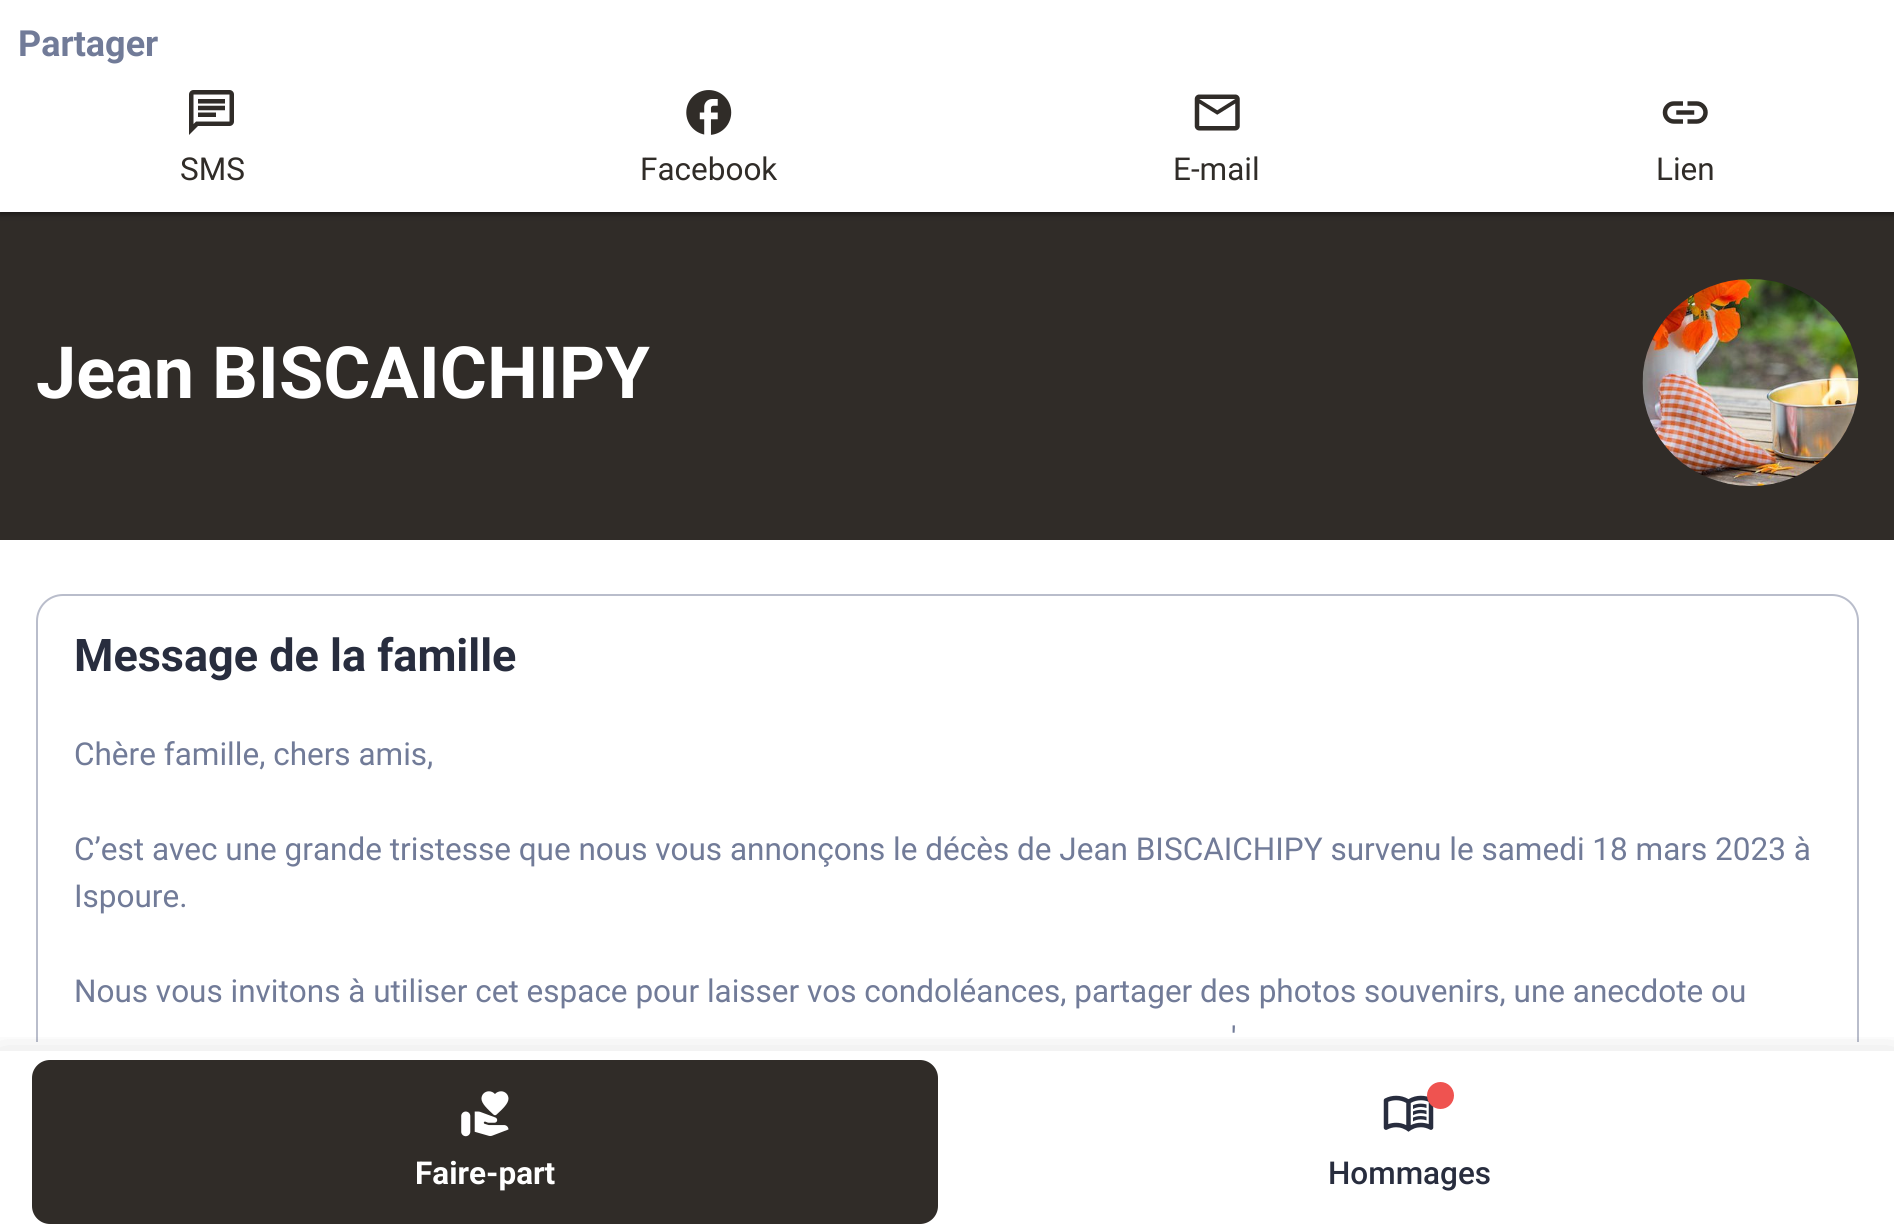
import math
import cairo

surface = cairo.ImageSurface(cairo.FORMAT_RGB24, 1894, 1231)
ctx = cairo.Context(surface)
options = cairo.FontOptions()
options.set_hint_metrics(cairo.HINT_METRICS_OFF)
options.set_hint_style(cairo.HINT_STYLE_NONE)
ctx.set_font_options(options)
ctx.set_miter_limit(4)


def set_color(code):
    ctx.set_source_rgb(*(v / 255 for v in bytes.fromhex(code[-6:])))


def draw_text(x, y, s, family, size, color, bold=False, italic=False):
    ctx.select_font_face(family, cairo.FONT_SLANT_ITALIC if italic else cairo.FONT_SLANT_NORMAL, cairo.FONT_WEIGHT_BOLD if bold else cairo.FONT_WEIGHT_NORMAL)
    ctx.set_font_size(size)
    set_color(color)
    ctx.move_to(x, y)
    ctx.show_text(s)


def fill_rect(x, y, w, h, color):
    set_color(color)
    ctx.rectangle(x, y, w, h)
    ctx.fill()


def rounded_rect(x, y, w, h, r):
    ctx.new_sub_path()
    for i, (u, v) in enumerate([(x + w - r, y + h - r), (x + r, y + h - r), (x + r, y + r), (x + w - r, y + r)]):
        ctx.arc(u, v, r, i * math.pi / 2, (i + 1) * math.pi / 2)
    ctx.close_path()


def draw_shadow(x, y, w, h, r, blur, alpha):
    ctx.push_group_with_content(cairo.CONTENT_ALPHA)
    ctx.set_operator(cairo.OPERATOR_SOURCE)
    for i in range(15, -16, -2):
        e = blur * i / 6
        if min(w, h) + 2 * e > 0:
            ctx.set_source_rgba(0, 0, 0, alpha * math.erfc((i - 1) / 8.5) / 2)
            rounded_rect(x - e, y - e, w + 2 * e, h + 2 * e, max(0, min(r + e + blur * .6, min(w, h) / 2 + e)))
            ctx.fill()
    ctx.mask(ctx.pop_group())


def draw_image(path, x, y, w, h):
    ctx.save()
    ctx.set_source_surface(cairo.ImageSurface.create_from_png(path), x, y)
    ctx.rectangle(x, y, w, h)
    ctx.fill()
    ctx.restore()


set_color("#ffffff")
ctx.paint()
fill_rect(0, 212, 1894, 328, "#302c28")
set_color("#000000")
draw_shadow(-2, 0, 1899, 216, 0, 3.5, 0.15)
draw_shadow(0, 2, 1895, 212, 0, 2, 0.3)
fill_rect(0, 0, 1894, 212, "#ffffff")
draw_text(18, 56, "Partager", "Roboto", 36, "#717b98", bold=True)
draw_image("assets/img1.png", 189, 90, 45, 45)
draw_text(180, 180, "SMS", "Roboto", 31.5, "#302c28")
draw_image("assets/img2.png", 686, 90, 46, 45)
draw_text(640, 180, "Facebook", "Roboto", 31.5, "#302c28")
draw_image("assets/img3.png", 1194, 94, 46, 37)
draw_text(1173, 180, "E-mail", "Roboto", 31.5, "#302c28")
draw_image("assets/img4.png", 1662, 101, 46, 23)
draw_text(1656, 180, "Lien", "Roboto", 31.5, "#302c28")
draw_text(36, 398, "Jean BISCAICHIPY", "Roboto", 72, "#ffffff", bold=True)
draw_image("assets/img5.png", 1642, 279, 217, 207)
ctx.save()
ctx.rectangle(0, 0, 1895, 1042)
ctx.clip()
rounded_rect(37, 595, 1821, 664, 26)
set_color("#b9bdcb")
ctx.stroke()
ctx.restore()
draw_text(74, 671, "Message de la famille", "Roboto", 45, "#282d3e", bold=True)
draw_text(74, 765, "Chère famille, chers amis,", "Roboto", 31.5, "#717b98")
draw_text(74, 860, "C’est avec une grande tristesse que nous vous annonçons le décès de Jean BISCAICHIPY survenu le samedi 18 mars 2023 à", "Roboto", 31.5, "#717b98")
draw_text(74, 907, "Ispoure.", "Roboto", 31.5, "#717b98")
draw_text(74, 1002, "Nous vous invitons à utiliser cet espace pour laisser vos condoléances, partager des photos souvenirs, une anecdote ou", "Roboto", 31.5, "#717b98")
draw_text(1231, 1049, "'", "Roboto", 31.5, "#717b98")
ctx.save()
ctx.rectangle(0, 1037, 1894, 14)
ctx.clip()
set_color("#000000")
draw_shadow(0, 1060, 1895, 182, 0, 18, 0.2)
ctx.restore()
set_color("#302c28")
rounded_rect(32, 1060, 906, 164, 18)
ctx.fill()
draw_image("assets/img6.png", 461, 1091, 48, 46)
draw_text(415, 1184, "Faire-part", "Roboto", 31.5, "#ffffff", bold=True)
draw_image("assets/img7.png", 1383, 1095, 51, 37)
set_color("#ef5350")
ctx.arc(1440.5, 1095.5, 13.5, 0, 2 * math.pi)
ctx.fill()
draw_text(1328, 1184, "Hommages", "Roboto Medium", 31.5, "#282d3e")
surface.write_to_png("output.png")
